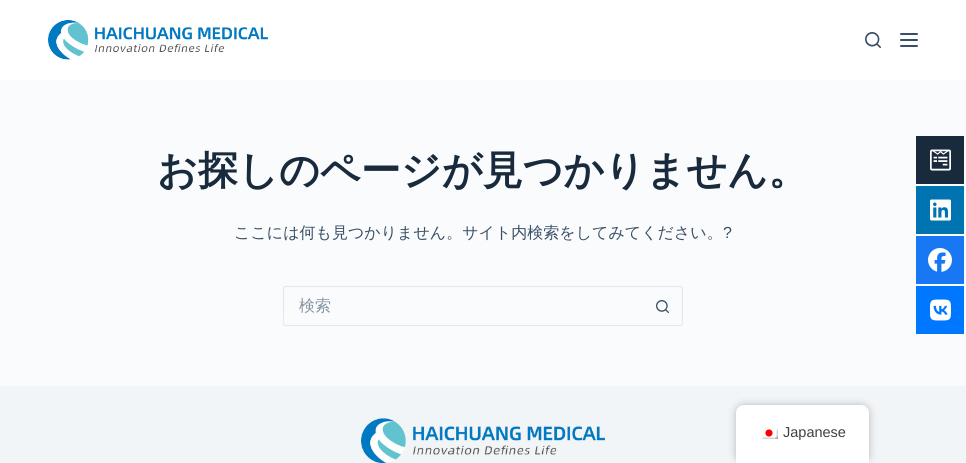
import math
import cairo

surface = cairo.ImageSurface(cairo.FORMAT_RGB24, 966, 463)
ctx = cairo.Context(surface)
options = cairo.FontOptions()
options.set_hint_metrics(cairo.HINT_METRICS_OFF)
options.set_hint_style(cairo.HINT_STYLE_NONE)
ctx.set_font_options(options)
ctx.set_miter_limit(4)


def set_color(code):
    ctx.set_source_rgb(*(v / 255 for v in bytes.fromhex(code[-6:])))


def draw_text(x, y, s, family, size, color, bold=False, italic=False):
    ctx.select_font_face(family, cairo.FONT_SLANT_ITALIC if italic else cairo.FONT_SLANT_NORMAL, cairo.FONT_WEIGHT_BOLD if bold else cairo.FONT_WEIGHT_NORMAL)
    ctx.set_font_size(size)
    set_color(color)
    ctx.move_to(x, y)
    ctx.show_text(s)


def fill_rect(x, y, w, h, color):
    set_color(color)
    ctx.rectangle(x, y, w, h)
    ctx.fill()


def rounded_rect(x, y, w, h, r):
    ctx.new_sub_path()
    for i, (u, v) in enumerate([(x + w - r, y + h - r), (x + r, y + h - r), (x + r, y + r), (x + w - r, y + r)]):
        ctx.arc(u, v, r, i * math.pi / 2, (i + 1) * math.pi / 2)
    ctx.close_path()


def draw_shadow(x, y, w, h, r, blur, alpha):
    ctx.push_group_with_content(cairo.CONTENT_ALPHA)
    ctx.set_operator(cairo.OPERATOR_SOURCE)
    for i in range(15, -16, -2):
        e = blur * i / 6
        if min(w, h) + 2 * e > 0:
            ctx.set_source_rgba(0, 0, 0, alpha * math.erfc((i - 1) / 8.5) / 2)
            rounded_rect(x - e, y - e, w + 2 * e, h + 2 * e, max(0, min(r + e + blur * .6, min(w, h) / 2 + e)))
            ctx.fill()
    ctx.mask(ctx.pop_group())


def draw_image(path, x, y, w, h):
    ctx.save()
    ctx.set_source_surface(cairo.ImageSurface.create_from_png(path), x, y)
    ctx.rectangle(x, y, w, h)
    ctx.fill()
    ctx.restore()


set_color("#fafbfc")
ctx.paint()
fill_rect(0, 0, 966, 80, "#ffffff")
draw_image("assets/img1.png", 48, 20, 220, 40)
draw_image("assets/img2.png", 865, 32, 16, 16)
set_color("#3a4f66")
rounded_rect(900, 33, 18, 2, 1)
ctx.fill()
rounded_rect(900, 39, 18, 2, 1)
ctx.fill()
rounded_rect(900, 45, 18, 2, 1)
ctx.fill()
draw_text(157, 184, "お探しのページが見つかりません。", "WenQuanYi Zen Hei", 40, "#192a3d", bold=True)
draw_text(234, 238, "ここには何も見つかりません。サイト内検索をしてみてください。", "WenQuanYi Zen Hei Medium", 16, "#3a4f66")
draw_text(723, 238, "?", "Liberation Sans", 16, "#3a4f66")
set_color("#e1e8ed")
ctx.set_fill_rule(cairo.FILL_RULE_EVEN_ODD)
ctx.new_path()
ctx.move_to(286, 286)
ctx.line_to(643, 286)
ctx.line_to(643, 326)
ctx.line_to(286, 326)
ctx.curve_to(284, 326, 283, 325, 283, 323)
ctx.line_to(283, 289)
ctx.curve_to(283, 287, 284, 286, 286, 286)
ctx.close_path()
ctx.move_to(286, 287)
ctx.line_to(643, 287)
ctx.line_to(643, 325)
ctx.line_to(285, 325)
ctx.curve_to(283, 323, 284, 318, 284, 317)
ctx.line_to(284, 289)
ctx.line_to(285, 287)
ctx.close_path()
ctx.fill()
draw_text(299, 311, "検索", "WenQuanYi Zen Hei Medium", 16, "#8794a2")
set_color("#e1e8ed")
ctx.new_path()
ctx.move_to(643, 286)
ctx.line_to(680, 286)
ctx.curve_to(682, 286, 683, 287, 683, 289)
ctx.line_to(683, 323)
ctx.curve_to(683, 325, 682, 326, 680, 326)
ctx.line_to(643, 326)
ctx.close_path()
ctx.move_to(643, 287)
ctx.line_to(680, 287)
ctx.curve_to(681, 287, 682, 288, 682, 289)
ctx.line_to(682, 323)
ctx.curve_to(682, 324, 681, 325, 680, 325)
ctx.line_to(643, 325)
ctx.close_path()
ctx.fill()
draw_image("assets/img3.png", 656, 300, 13, 13)
ctx.new_path()
ctx.move_to(657, 300.5)
ctx.curve_to(660.5, 297.5, 665, 298, 667.5, 301)
set_color("#fafbfc")
ctx.set_line_width(1.5)
ctx.set_line_cap(cairo.LINE_CAP_ROUND)
ctx.stroke()
fill_rect(0, 386, 966, 77, "#f2f5f7")
draw_image("assets/img4.png", 361, 418, 244, 45)
fill_rect(916, 136, 48, 48, "#192a3d")
draw_image("assets/img5.png", 930, 149, 21, 22)
fill_rect(916, 186, 48, 48, "#0073b1")
draw_image("assets/img6.png", 930, 199, 21, 22)
fill_rect(916, 236, 48, 48, "#1877f2")
draw_image("assets/img7.png", 928, 248, 24, 24)
fill_rect(916, 286, 48, 48, "#0077ff")
draw_image("assets/img8.png", 930, 299, 21, 22)
set_color("#000000")
draw_shadow(736, 405, 133, 58, 8, 4, 0.25)
set_color("#ffffff")
ctx.new_path()
ctx.move_to(744, 405)
ctx.line_to(861, 405)
ctx.curve_to(865.5, 405, 869, 408.5, 869, 413)
ctx.line_to(869, 463)
ctx.line_to(736, 463)
ctx.line_to(736, 413)
ctx.curve_to(736, 408.5, 739.5, 405, 744, 405)
ctx.close_path()
ctx.fill()
draw_image("assets/img9.png", 762, 429, 16, 10)
draw_text(783, 437, "Japanese", "Liberation Sans", 14.5, "#404040")
surface.write_to_png("output.png")
